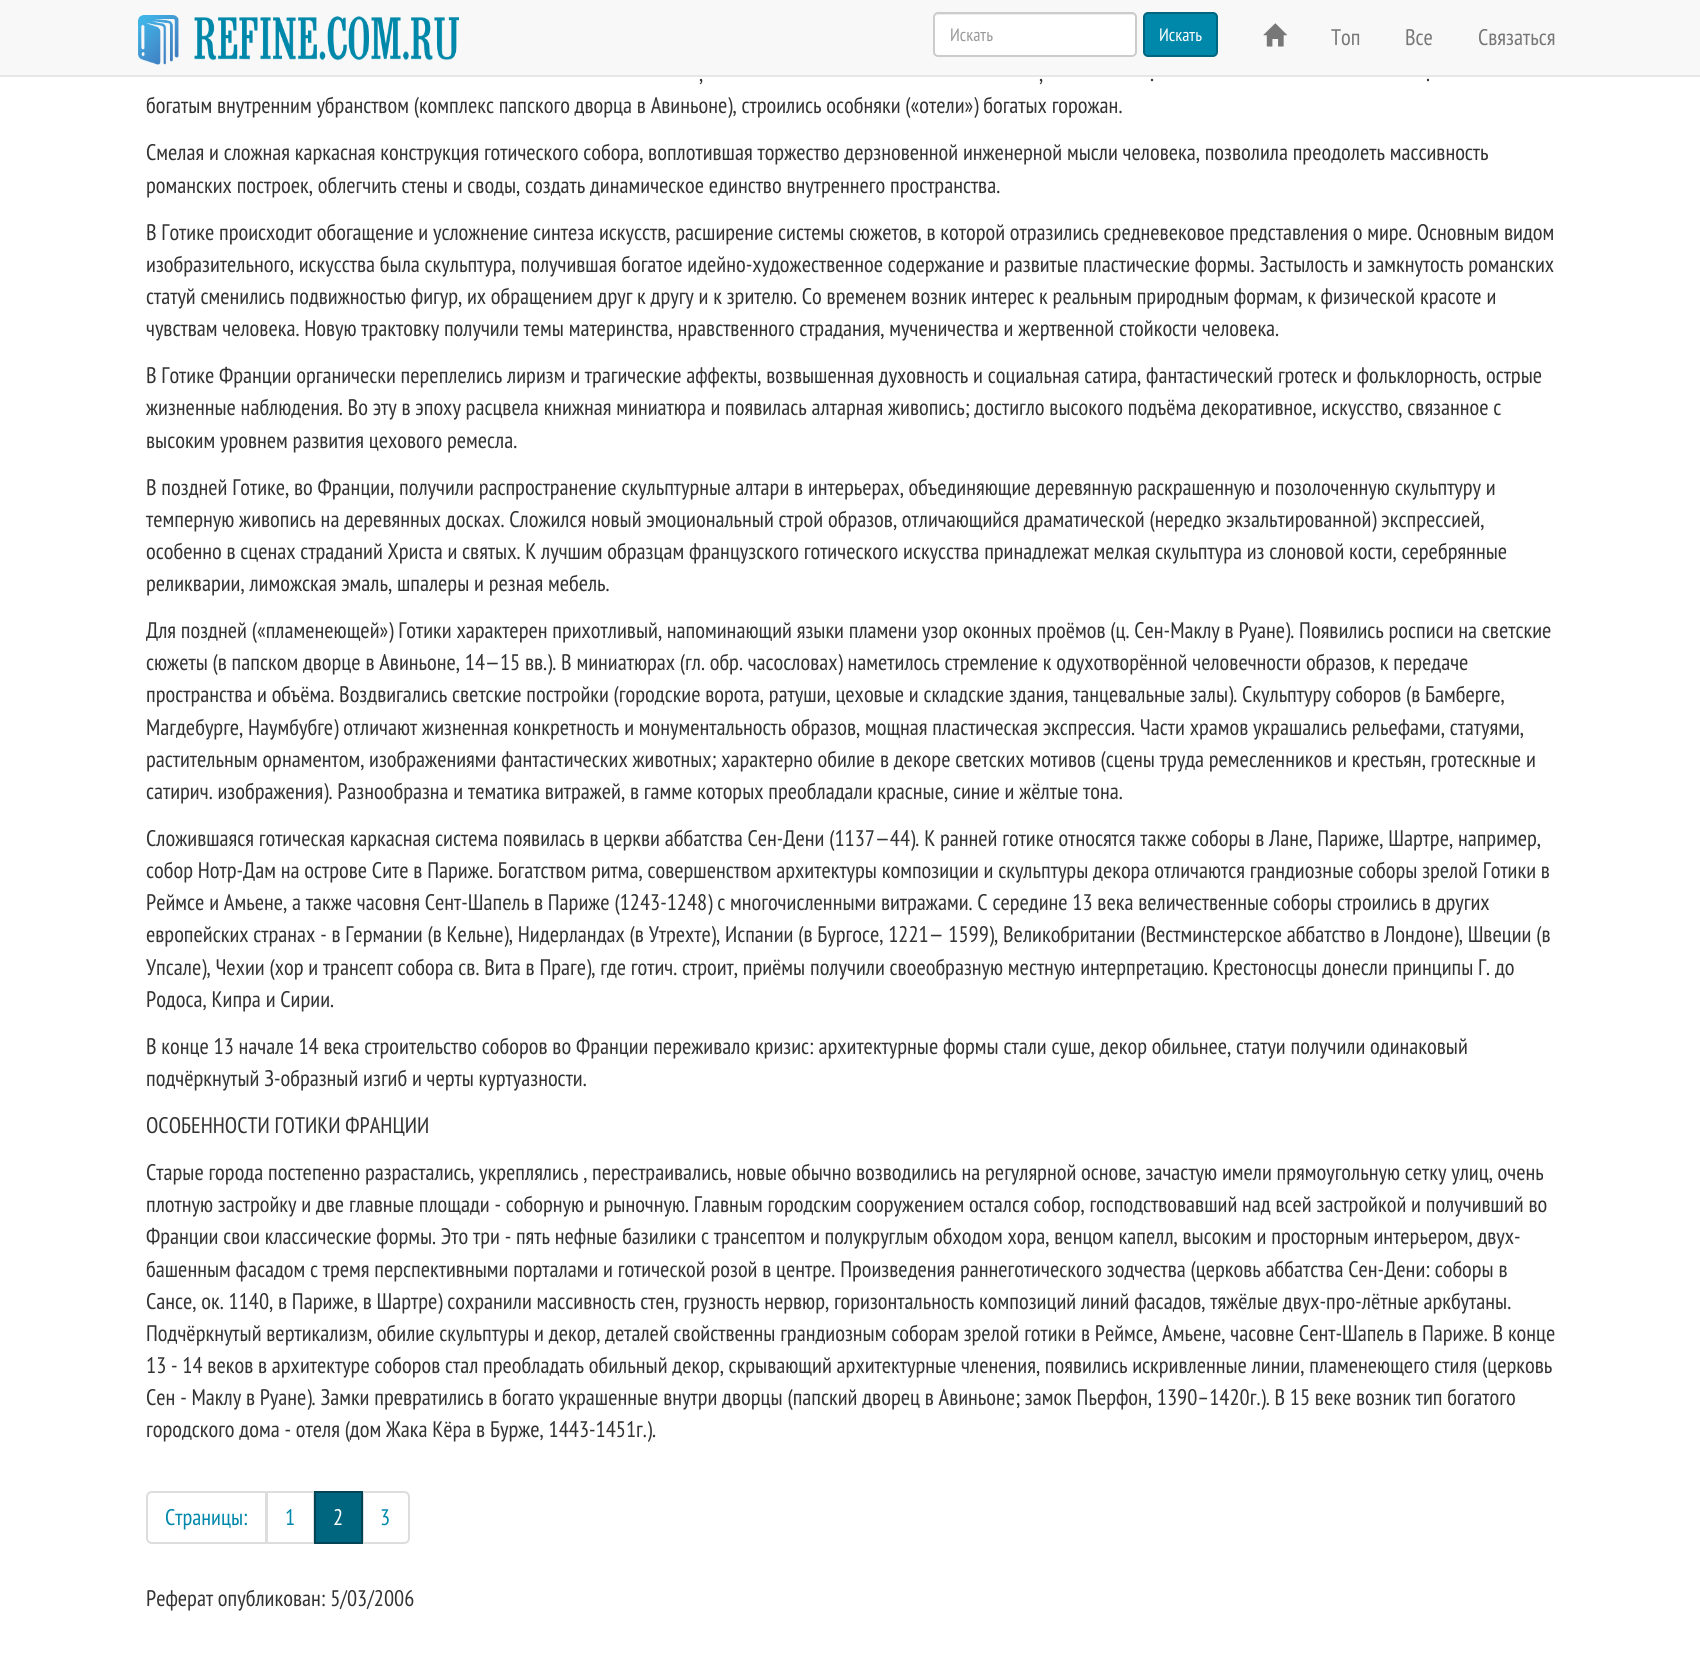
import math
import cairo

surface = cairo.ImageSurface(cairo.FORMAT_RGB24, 1700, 1657)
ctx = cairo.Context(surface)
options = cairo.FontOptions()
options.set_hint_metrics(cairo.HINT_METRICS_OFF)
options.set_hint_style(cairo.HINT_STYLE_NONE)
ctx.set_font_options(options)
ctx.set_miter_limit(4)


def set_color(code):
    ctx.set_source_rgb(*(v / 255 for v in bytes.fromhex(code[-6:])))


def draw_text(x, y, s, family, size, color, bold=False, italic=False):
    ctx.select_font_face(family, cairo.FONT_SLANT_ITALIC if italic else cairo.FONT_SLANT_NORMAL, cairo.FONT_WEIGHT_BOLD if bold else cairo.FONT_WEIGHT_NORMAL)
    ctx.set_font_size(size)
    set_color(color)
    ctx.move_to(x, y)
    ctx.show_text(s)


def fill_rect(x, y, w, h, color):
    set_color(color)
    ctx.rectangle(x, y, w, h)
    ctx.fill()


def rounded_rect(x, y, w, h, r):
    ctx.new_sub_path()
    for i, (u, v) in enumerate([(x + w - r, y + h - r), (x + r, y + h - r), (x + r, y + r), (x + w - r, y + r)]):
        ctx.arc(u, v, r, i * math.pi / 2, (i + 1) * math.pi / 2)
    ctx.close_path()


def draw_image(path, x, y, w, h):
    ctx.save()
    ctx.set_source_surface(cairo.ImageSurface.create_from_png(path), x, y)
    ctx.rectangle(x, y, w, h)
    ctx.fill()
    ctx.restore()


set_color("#ffffff")
ctx.paint()
fill_rect(0, 0, 1700, 75, "#f8f8f8")
fill_rect(0, 75, 1700, 2, "#e7e7e7")
draw_image("assets/img1.png", 138, 15, 321, 50)
set_color("#ffffff")
rounded_rect(933, 12, 204, 45, 5)
ctx.fill()
set_color("#ececec")
ctx.new_path()
ctx.move_to(938, 15)
ctx.line_to(1132, 15)
ctx.curve_to(1134, 15, 1136, 16, 1136, 18)
ctx.line_to(1136, 17)
ctx.curve_to(1136, 15, 1135, 14, 1133, 14)
ctx.line_to(938, 14)
ctx.curve_to(937, 14, 936, 15, 935, 16)
ctx.close_path()
ctx.fill()
rounded_rect(934, 13, 202, 43, 4)
set_color("#cccccc")
ctx.stroke()
draw_text(950, 41, "Искать", "PT Sans Narrow", 18, "#999999")
set_color("#0088aa")
rounded_rect(1144, 13, 73, 43, 4)
ctx.fill_preserve()
set_color("#006680")
ctx.stroke()
draw_text(1159, 41, "Искать", "PT Sans Narrow", 18, "#ffffff")
draw_image("assets/img2.png", 1263, 23, 24, 24)
draw_text(1331, 45, "Топ", "PT Sans Narrow", 22.5, "#777777")
draw_text(1405, 45, "Все", "PT Sans Narrow", 22.5, "#777777")
draw_text(1478, 45, "Связаться", "PT Sans Narrow", 22.5, "#777777")
draw_text(699, 81, ",", "PT Sans Narrow", 22.5, "#333333")
draw_text(1039, 81, ",", "PT Sans Narrow", 22.5, "#333333")
draw_text(1150, 81, ".", "PT Sans Narrow", 22.5, "#333333")
draw_text(1426, 81, ".", "PT Sans Narrow", 22.5, "#333333")
draw_text(146, 113, "богатым внутренним убранством (комплекс папского дворца в Авиньоне), строились особняки («отели») богатых горожан.", "PT Sans Narrow", 22.5, "#333333")
draw_text(146, 160, "Смелая и сложная каркасная конструкция готического собора, воплотившая торжество дерзновенной инженерной мысли человека, позволила преодолеть массивность", "PT Sans Narrow", 22.5, "#333333")
draw_text(146, 193, "романских построек, облегчить стены и своды, создать динамическое единство внутреннего пространства.", "PT Sans Narrow", 22.5, "#333333")
draw_text(146, 240, "В Готике происходит обогащение и усложнение синтеза искусств, расширение системы сюжетов, в которой отразились средневековое представления о мире. Основным видом", "PT Sans Narrow", 22.5, "#333333")
draw_text(146, 272, "изобразительного, искусства была скульптура, получившая богатое идейно-художественное содержание и развитые пластические формы. Застылость и замкнутость романских", "PT Sans Narrow", 22.5, "#333333")
draw_text(146, 304, "статуй сменились подвижностью фигур, их обращением друг к другу и к зрителю. Со временем возник интерес к реальным природным формам, к физической красоте и", "PT Sans Narrow", 22.5, "#333333")
draw_text(146, 336, "чувствам человека. Новую трактовку получили темы материнства, нравственного страдания, мученичества и жертвенной стойкости человека.", "PT Sans Narrow", 22.5, "#333333")
draw_text(146, 383, "В Готике Франции органически переплелись лиризм и трагические аффекты, возвышенная духовность и социальная сатира, фантастический гротеск и фольклорность, острые", "PT Sans Narrow", 22.5, "#333333")
draw_text(146, 415, "жизненные наблюдения. Во эту в эпоху расцвела книжная миниатюра и появилась алтарная живопись; достигло высокого подъёма декоративное, искусство, связанное с", "PT Sans Narrow", 22.5, "#333333")
draw_text(146, 448, "высоким уровнем развития цехового ремесла.", "PT Sans Narrow", 22.5, "#333333")
draw_text(146, 495, "В поздней Готике, во Франции, получили распространение скульптурные алтари в интерьерах, объединяющие деревянную раскрашенную и позолоченную скульптуру и", "PT Sans Narrow", 22.5, "#333333")
draw_text(146, 527, "темперную живопись на деревянных досках. Сложился новый эмоциональный строй образов, отличающийся драматической (нередко экзальтированной) экспрессией,", "PT Sans Narrow", 22.5, "#333333")
draw_text(146, 559, "особенно в сценах страданий Христа и святых. К лучшим образцам французского готического искусства принадлежат мелкая скульптура из слоновой кости, серебрянные", "PT Sans Narrow", 22.5, "#333333")
draw_text(146, 591, "реликварии, лиможская эмаль, шпалеры и резная мебель.", "PT Sans Narrow", 22.5, "#333333")
draw_text(146, 638, "Для поздней («пламенеющей») Готики характерен прихотливый, напоминающий языки пламени узор оконных проёмов (ц. Сен-Маклу в Руане). Появились росписи на светские", "PT Sans Narrow", 22.5, "#333333")
draw_text(146, 670, "сюжеты (в папском дворце в Авиньоне, 14—15 вв.). В миниатюрах (гл. обр. часословах) наметилось стремление к одухотворённой человечности образов, к передаче", "PT Sans Narrow", 22.5, "#333333")
draw_text(146, 702, "пространства и объёма. Воздвигались светские постройки (городские ворота, ратуши, цеховые и складские здания, танцевальные залы). Скульптуру соборов (в Бамберге,", "PT Sans Narrow", 22.5, "#333333")
draw_text(146, 735, "Магдебурге, Наумбубге) отличают жизненная конкретность и монументальность образов, мощная пластическая экспрессия. Части храмов украшались рельефами, статуями,", "PT Sans Narrow", 22.5, "#333333")
draw_text(146, 767, "растительным орнаментом, изображениями фантастических животных; характерно обилие в декоре светских мотивов (сцены труда ремесленников и крестьян, гротескные и", "PT Sans Narrow", 22.5, "#333333")
draw_text(146, 799, "сатирич. изображения). Разнообразна и тематика витражей, в гамме которых преобладали красные, синие и жёлтые тона.", "PT Sans Narrow", 22.5, "#333333")
draw_text(146, 846, "Сложившаяся готическая каркасная система появилась в церкви аббатства Сен-Дени (1137—44). К ранней готике относятся также соборы в Лане, Париже, Шартре, например,", "PT Sans Narrow", 22.5, "#333333")
draw_text(146, 878, "собор Нотр-Дам на острове Сите в Париже. Богатством ритма, совершенством архитектуры композиции и скульптуры декора отличаются грандиозные соборы зрелой Готики в", "PT Sans Narrow", 22.5, "#333333")
draw_text(146, 910, "Реймсе и Амьене, а также часовня Сент-Шапель в Париже (1243-1248) с многочисленными витражами. С середине 13 века величественные соборы строились в других", "PT Sans Narrow", 22.5, "#333333")
draw_text(146, 942, "европейских странах - в Германии (в Кельне), Нидерландах (в Утрехте), Испании (в Бургосе, 1221— 1599), Великобритании (Вестминстерское аббатство в Лондоне), Швеции (в", "PT Sans Narrow", 22.5, "#333333")
draw_text(146, 975, "Упсале), Чехии (хор и трансепт собора св. Вита в Праге), где готич. строит, приёмы получили своеобразную местную интерпретацию. Крестоносцы донесли принципы Г. до", "PT Sans Narrow", 22.5, "#333333")
draw_text(146, 1007, "Родоса, Кипра и Сирии.", "PT Sans Narrow", 22.5, "#333333")
draw_text(146, 1054, "В конце 13 начале 14 века строительство соборов во Франции переживало кризис: архитектурные формы стали суше, декор обильнее, статуи получили одинаковый", "PT Sans Narrow", 22.5, "#333333")
draw_text(146, 1086, "подчёркнутый З-образный изгиб и черты куртуазности.", "PT Sans Narrow", 22.5, "#333333")
draw_text(146, 1133, "ОСОБЕННОСТИ ГОТИКИ ФРАНЦИИ", "PT Sans Narrow", 22.5, "#333333")
draw_text(146, 1180, "Старые города постепенно разрастались, укреплялись , перестраивались, новые обычно возводились на регулярной основе, зачастую имели прямоугольную сетку улиц, очень", "PT Sans Narrow", 22.5, "#333333")
draw_text(146, 1212, "плотную застройку и две главные площади - соборную и рыночную. Главным городским сооружением остался собор, господствовавший над всей застройкой и получивший во", "PT Sans Narrow", 22.5, "#333333")
draw_text(146, 1244, "Франции свои классические формы. Это три - пять нефные базилики с трансептом и полукруглым обходом хора, венцом капелл, высоким и просторным интерьером, двух-", "PT Sans Narrow", 22.5, "#333333")
draw_text(146, 1277, "башенным фасадом с тремя перспективными порталами и готической розой в центре. Произведения раннеготического зодчества (церковь аббатства Сен-Дени: соборы в", "PT Sans Narrow", 22.5, "#333333")
draw_text(146, 1309, "Сансе, ок. 1140, в Париже, в Шартре) сохранили массивность стен, грузность нервюр, горизонтальность композиций линий фасадов, тяжёлые двух-про-лётные аркбутаны.", "PT Sans Narrow", 22.5, "#333333")
draw_text(146, 1341, "Подчёркнутый вертикализм, обилие скульптуры и декор, деталей свойственны грандиозным соборам зрелой готики в Реймсе, Амьене, часовне Сент-Шапель в Париже. В конце", "PT Sans Narrow", 22.5, "#333333")
draw_text(146, 1373, "13 - 14 веков в архитектуре соборов стал преобладать обильный декор, скрывающий архитектурные членения, появились искривленные линии, пламенеющего стиля (церковь", "PT Sans Narrow", 22.5, "#333333")
draw_text(146, 1405, "Сен - Маклу в Руане). Замки превратились в богато украшенные внутри дворцы (папский дворец в Авиньоне; замок Пьерфон, 1390–1420г.). В 15 веке возник тип богатого", "PT Sans Narrow", 22.5, "#333333")
draw_text(146, 1437, "городского дома - отеля (дом Жака Кёра в Бурже, 1443-1451г.).", "PT Sans Narrow", 22.5, "#333333")
ctx.new_path()
ctx.move_to(152, 1492)
ctx.line_to(266, 1492)
ctx.line_to(266, 1543)
ctx.line_to(152, 1543)
ctx.curve_to(149, 1543, 147, 1541, 147, 1538)
ctx.line_to(147, 1497)
ctx.curve_to(147, 1494, 149, 1492, 152, 1492)
ctx.close_path()
set_color("#dddddd")
ctx.stroke()
draw_text(165, 1525, "Страницы:", "PT Sans Narrow", 22.5, "#0088aa")
ctx.rectangle(267, 1492, 47, 51)
set_color("#dddddd")
ctx.stroke()
draw_text(285, 1525, "1", "PT Sans Narrow", 22.5, "#0088aa")
ctx.new_path()
ctx.move_to(363, 1492)
ctx.line_to(404, 1492)
ctx.curve_to(407, 1492, 409, 1494, 409, 1497)
ctx.line_to(409, 1538)
ctx.curve_to(409, 1541, 407, 1543, 404, 1543)
ctx.line_to(363, 1543)
ctx.close_path()
set_color("#dddddd")
ctx.stroke()
set_color("#006680")
ctx.rectangle(315, 1492, 47, 51)
ctx.fill_preserve()
set_color("#004455")
ctx.stroke()
draw_text(333, 1525, "2", "PT Sans Narrow", 22.5, "#ffffff")
draw_text(380, 1525, "3", "PT Sans Narrow", 22.5, "#0088aa")
draw_text(146, 1606, "Реферат опубликован: 5/03/2006", "PT Sans Narrow", 22.5, "#333333")
surface.write_to_png("output.png")
